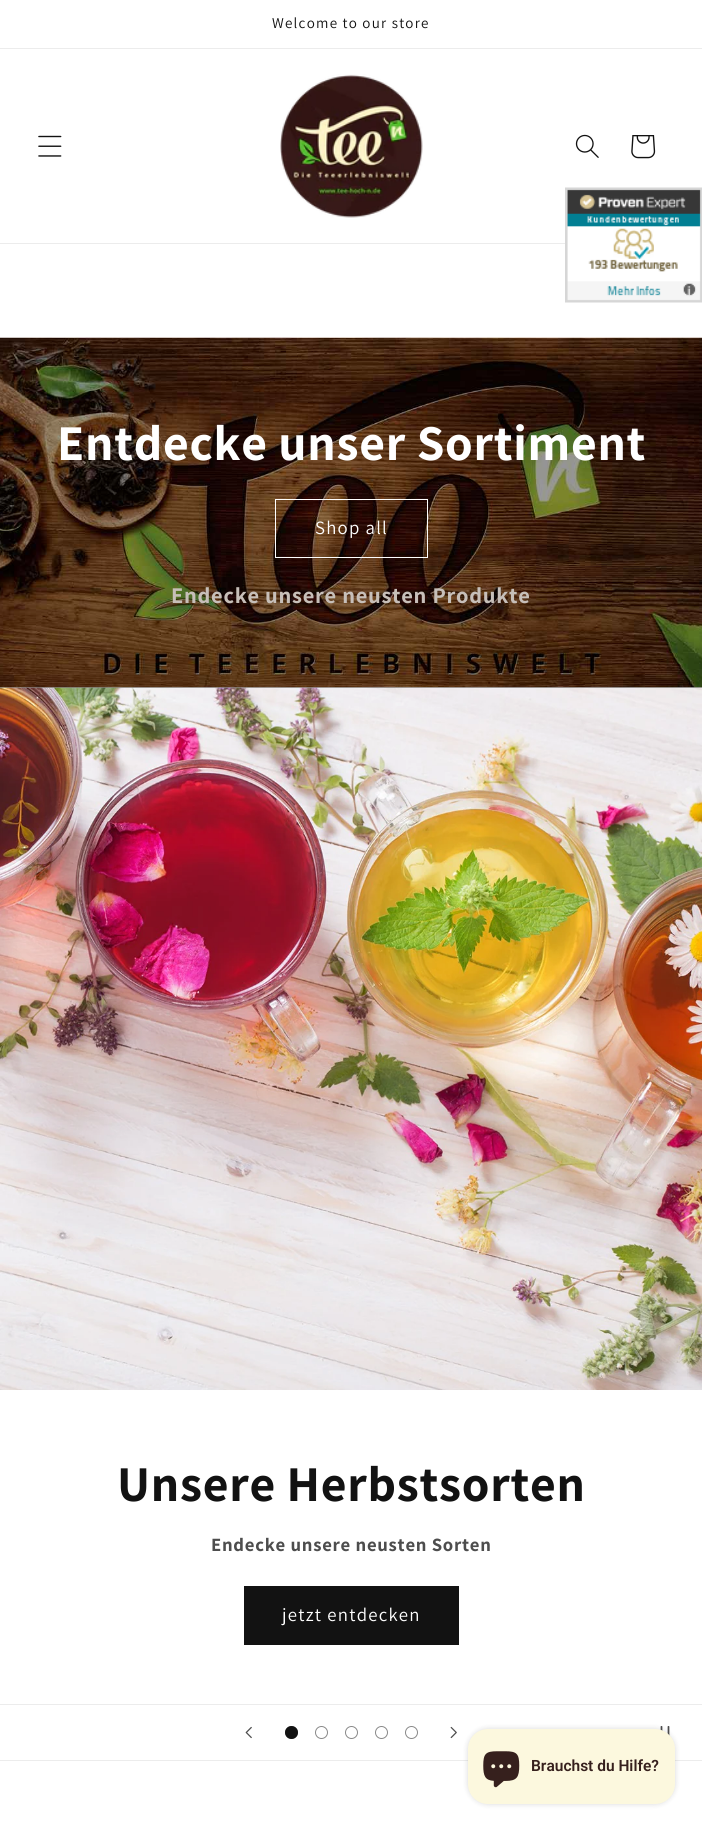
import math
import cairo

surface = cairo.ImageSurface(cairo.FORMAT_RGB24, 702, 1830)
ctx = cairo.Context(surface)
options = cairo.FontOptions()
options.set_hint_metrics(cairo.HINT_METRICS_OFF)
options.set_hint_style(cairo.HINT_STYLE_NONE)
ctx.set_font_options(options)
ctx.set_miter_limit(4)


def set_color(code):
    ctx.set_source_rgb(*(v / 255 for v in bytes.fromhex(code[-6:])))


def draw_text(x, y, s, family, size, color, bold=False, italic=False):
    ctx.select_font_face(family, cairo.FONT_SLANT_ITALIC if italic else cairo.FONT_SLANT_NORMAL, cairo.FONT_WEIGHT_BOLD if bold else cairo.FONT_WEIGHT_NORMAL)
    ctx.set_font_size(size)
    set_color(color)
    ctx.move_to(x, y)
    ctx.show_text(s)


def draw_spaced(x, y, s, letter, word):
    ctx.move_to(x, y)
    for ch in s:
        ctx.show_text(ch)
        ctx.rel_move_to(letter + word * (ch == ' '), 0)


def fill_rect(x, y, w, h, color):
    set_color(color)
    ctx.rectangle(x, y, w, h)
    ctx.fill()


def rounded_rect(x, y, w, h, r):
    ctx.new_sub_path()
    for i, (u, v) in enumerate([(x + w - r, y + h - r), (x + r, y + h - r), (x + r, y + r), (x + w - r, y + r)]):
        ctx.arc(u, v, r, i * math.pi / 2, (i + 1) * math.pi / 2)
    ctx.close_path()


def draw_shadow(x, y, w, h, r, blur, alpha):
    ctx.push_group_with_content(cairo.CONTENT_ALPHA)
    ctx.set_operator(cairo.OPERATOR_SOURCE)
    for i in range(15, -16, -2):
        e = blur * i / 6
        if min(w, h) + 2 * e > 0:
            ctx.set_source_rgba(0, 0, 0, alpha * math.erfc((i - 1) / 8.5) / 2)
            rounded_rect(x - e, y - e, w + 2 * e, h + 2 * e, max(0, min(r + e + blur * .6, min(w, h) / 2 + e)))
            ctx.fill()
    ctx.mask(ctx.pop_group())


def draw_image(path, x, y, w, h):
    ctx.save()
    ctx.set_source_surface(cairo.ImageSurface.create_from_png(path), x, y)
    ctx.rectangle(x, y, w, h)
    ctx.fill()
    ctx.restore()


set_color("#ffffff")
ctx.paint()
fill_rect(0, 48, 702, 1, "#ececec")
ctx.select_font_face("Assistant")
ctx.set_font_size(15)
set_color("#121212")
draw_spaced(272, 28, "Welcome to our store", 1.25, 0)
fill_rect(0, 243, 565, 1, "#ececec")
draw_image("assets/img1.png", 38, 135, 24, 22)
draw_image("assets/img2.png", 280, 74, 143, 144)
draw_image("assets/img3.png", 575, 134, 24, 24)
draw_image("assets/img4.png", 631, 135, 25, 24)
draw_image("assets/img5.png", 565, 187, 137, 116)
fill_rect(0, 687, 702, 1, "#8b8b8b")
draw_image("assets/img6.png", 0, 337, 702, 351)
ctx.select_font_face("Assistant", cairo.FONT_SLANT_NORMAL, cairo.FONT_WEIGHT_BOLD)
ctx.set_font_size(50)
set_color("#ffffff")
draw_spaced(57, 460, "Entdecke unser Sortiment", 0.75, 0)
ctx.rectangle(275.5, 499.5, 152, 58)
ctx.set_line_width(1)
ctx.stroke()
ctx.select_font_face("Assistant")
ctx.set_font_size(18.75)
draw_spaced(315, 534, "Shop all", 1.25, 0)
ctx.select_font_face("Assistant", cairo.FONT_SLANT_NORMAL, cairo.FONT_WEIGHT_BOLD)
ctx.set_font_size(22.5)
set_color("#c7bfb9")
draw_spaced(171, 603, "Endecke unsere neusten Produkte", 0.75, 0)
draw_image("assets/img7.png", 0, 687, 702, 703)
ctx.set_font_size(50)
set_color("#121212")
draw_spaced(117, 1501, "Unsere Herbstsorten", 0.75, 0)
ctx.set_font_size(18.75)
set_color("#4d4d4d")
draw_spaced(211, 1551, "Endecke unsere neusten Sorten", 0.75, 0)
fill_rect(244, 1586, 215, 59, "#121212")
ctx.select_font_face("Assistant")
set_color("#ffffff")
draw_spaced(282, 1621, "jetzt entdecken", 1.25, 0)
fill_rect(0, 1704, 702, 1, "#ececec")
fill_rect(0, 1760, 702, 1, "#ececec")
draw_image("assets/img8.png", 245, 1726, 7, 13)
set_color("#121212")
ctx.arc(291.5, 1732.5, 6.5, 0, 2 * math.pi)
ctx.fill()
ctx.arc(291.5, 1732.5, 6, 0, 2 * math.pi)
ctx.set_source_rgba(0.071, 0.071, 0.071, 0.5)
ctx.stroke()
ctx.arc(321.5, 1732.5, 6, 0, 2 * math.pi)
set_color("#898989")
ctx.stroke()
ctx.arc(351.5, 1732.5, 6, 0, 2 * math.pi)
ctx.stroke()
ctx.arc(381.5, 1732.5, 6, 0, 2 * math.pi)
ctx.stroke()
ctx.arc(411.5, 1732.5, 6, 0, 2 * math.pi)
ctx.stroke()
draw_image("assets/img9.png", 450, 1726, 7, 13)
draw_image("assets/img10.png", 660, 1726, 10, 10)
set_color("#000000")
draw_shadow(468, 1729, 207, 75, 20, 3, 0.15)
set_color("#fcf8de")
rounded_rect(468, 1729, 207, 75, 20)
ctx.fill()
draw_image("assets/img11.png", 483, 1751, 37, 37)
draw_text(531, 1771, "Brauchst du Hilfe?", "Roboto SemiBold", 15.5, "#36201d")
surface.write_to_png("output.png")
